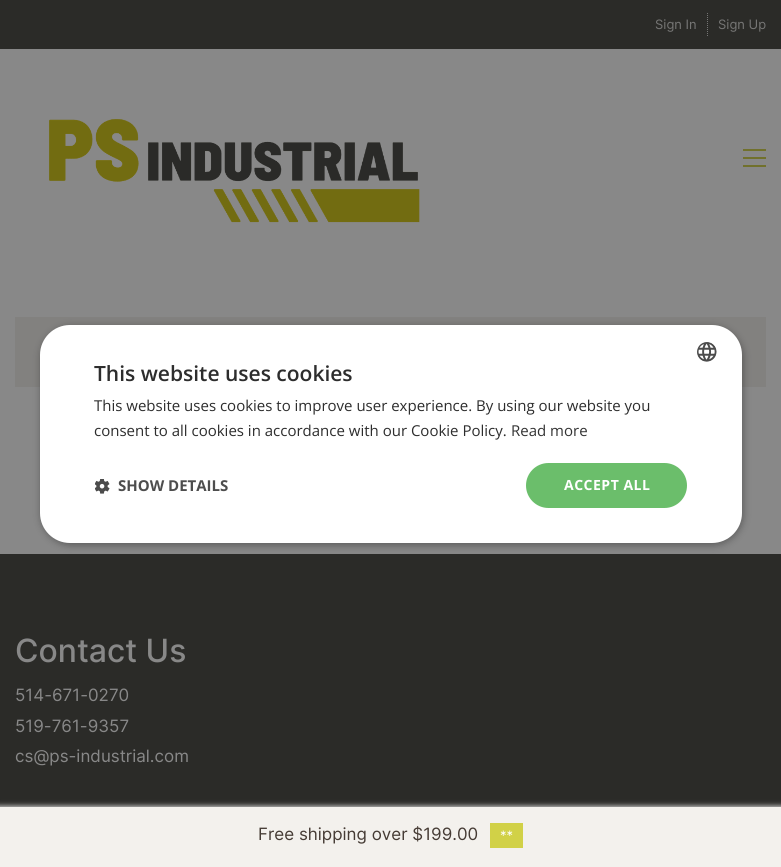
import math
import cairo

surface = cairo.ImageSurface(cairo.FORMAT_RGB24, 781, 867)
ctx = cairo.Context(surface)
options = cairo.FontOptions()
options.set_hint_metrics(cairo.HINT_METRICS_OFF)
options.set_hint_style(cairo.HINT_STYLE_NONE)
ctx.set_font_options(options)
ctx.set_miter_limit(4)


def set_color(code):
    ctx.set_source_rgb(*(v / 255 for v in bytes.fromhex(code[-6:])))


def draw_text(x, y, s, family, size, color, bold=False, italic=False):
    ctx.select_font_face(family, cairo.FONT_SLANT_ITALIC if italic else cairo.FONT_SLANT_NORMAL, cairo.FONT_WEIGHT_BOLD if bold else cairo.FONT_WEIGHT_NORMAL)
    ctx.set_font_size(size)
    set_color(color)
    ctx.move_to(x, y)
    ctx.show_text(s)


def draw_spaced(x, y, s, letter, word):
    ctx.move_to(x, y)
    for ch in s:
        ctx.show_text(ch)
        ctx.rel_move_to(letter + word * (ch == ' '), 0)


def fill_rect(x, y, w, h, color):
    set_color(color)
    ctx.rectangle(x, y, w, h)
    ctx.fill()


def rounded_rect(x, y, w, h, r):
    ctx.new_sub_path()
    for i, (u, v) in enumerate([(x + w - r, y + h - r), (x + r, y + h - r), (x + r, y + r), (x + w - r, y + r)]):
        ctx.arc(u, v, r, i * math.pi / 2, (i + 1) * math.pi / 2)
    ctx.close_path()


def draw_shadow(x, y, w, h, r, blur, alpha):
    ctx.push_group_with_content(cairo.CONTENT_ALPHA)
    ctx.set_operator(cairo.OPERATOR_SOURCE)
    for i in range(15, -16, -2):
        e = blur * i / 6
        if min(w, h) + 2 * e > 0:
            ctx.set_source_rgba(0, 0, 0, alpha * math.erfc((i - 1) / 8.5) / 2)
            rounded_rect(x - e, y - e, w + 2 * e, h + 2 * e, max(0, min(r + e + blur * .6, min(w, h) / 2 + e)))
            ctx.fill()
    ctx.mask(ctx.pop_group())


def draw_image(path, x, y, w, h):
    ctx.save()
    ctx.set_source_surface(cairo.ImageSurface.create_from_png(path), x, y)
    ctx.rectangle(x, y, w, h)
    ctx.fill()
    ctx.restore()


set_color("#888888")
ctx.paint()
fill_rect(0, 0, 781, 49, "#2b2b28")
draw_text(655, 29, "Sign In", "Inter", 13, "#767675")
ctx.new_path()
ctx.move_to(707.5, 13)
ctx.line_to(707.5, 36)
ctx.set_line_width(1)
ctx.set_dash([1, 1])
ctx.stroke()
draw_text(718, 29, "Sign Up", "Inter", 13, "#767675")
draw_image("assets/img1.png", 49, 119, 371, 104)
fill_rect(743, 149, 23, 2, "#71712c")
fill_rect(743, 157, 23, 2, "#71712c")
fill_rect(743, 165, 23, 2, "#71712c")
fill_rect(15, 317, 751, 70, "#82817f")
fill_rect(0, 554, 781, 253, "#2b2b28")
set_color("#000000")
draw_shadow(41, 327, 702, 218, 30, 4, 0.35)
set_color("#ffffff")
rounded_rect(40, 325, 702, 218, 30)
ctx.fill()
draw_image("assets/img2.png", 697, 342, 20, 20)
draw_text(94, 381, "This website uses cookies", "Open Sans SemiBold", 21, "#2d2d2d")
draw_text(94, 411, "This website uses cookies to improve user experience. By using our website you", "Open Sans", 15, "#2d2d2d")
draw_text(94, 436, "consent to all cookies in accordance with our Cookie Policy.", "Open Sans", 15, "#2d2d2d")
draw_text(511, 436, "Read more", "Open Sans", 15, "#333333")
draw_image("assets/img3.png", 95, 479, 15, 15)
draw_text(118, 491, "SHOW DETAILS", "Open Sans", 15, "#4d4d4d", bold=True)
set_color("#6bbe6b")
rounded_rect(526, 463, 161, 45, 22.5)
ctx.fill()
ctx.set_font_size(14)
set_color("#ffffff")
draw_spaced(564, 490, "ACCEPT ALL", 0.5, 0)
draw_text(15, 662, "Contact Us", "Inter Medium", 32, "#888888")
draw_text(15, 701, "514-671-0270", "Inter", 17, "#888888")
draw_text(15, 732, "519-761-9357", "Inter", 17, "#888888")
draw_text(15, 762, "cs@ps-industrial.com", "Inter", 17, "#888888")
set_color("#d6d6d6")
draw_shadow(-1, 806, 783, 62, 0, 2.5, 1)
fill_rect(0, 807, 781, 60, "#f3f1ed")
draw_text(258, 840, "Free shipping over $199.00", "Inter", 17, "#453b34")
fill_rect(490, 823, 33, 25, "#d1d147")
draw_text(500, 840, "**", "Inter", 13, "#ffffff")
surface.write_to_png("output.png")
